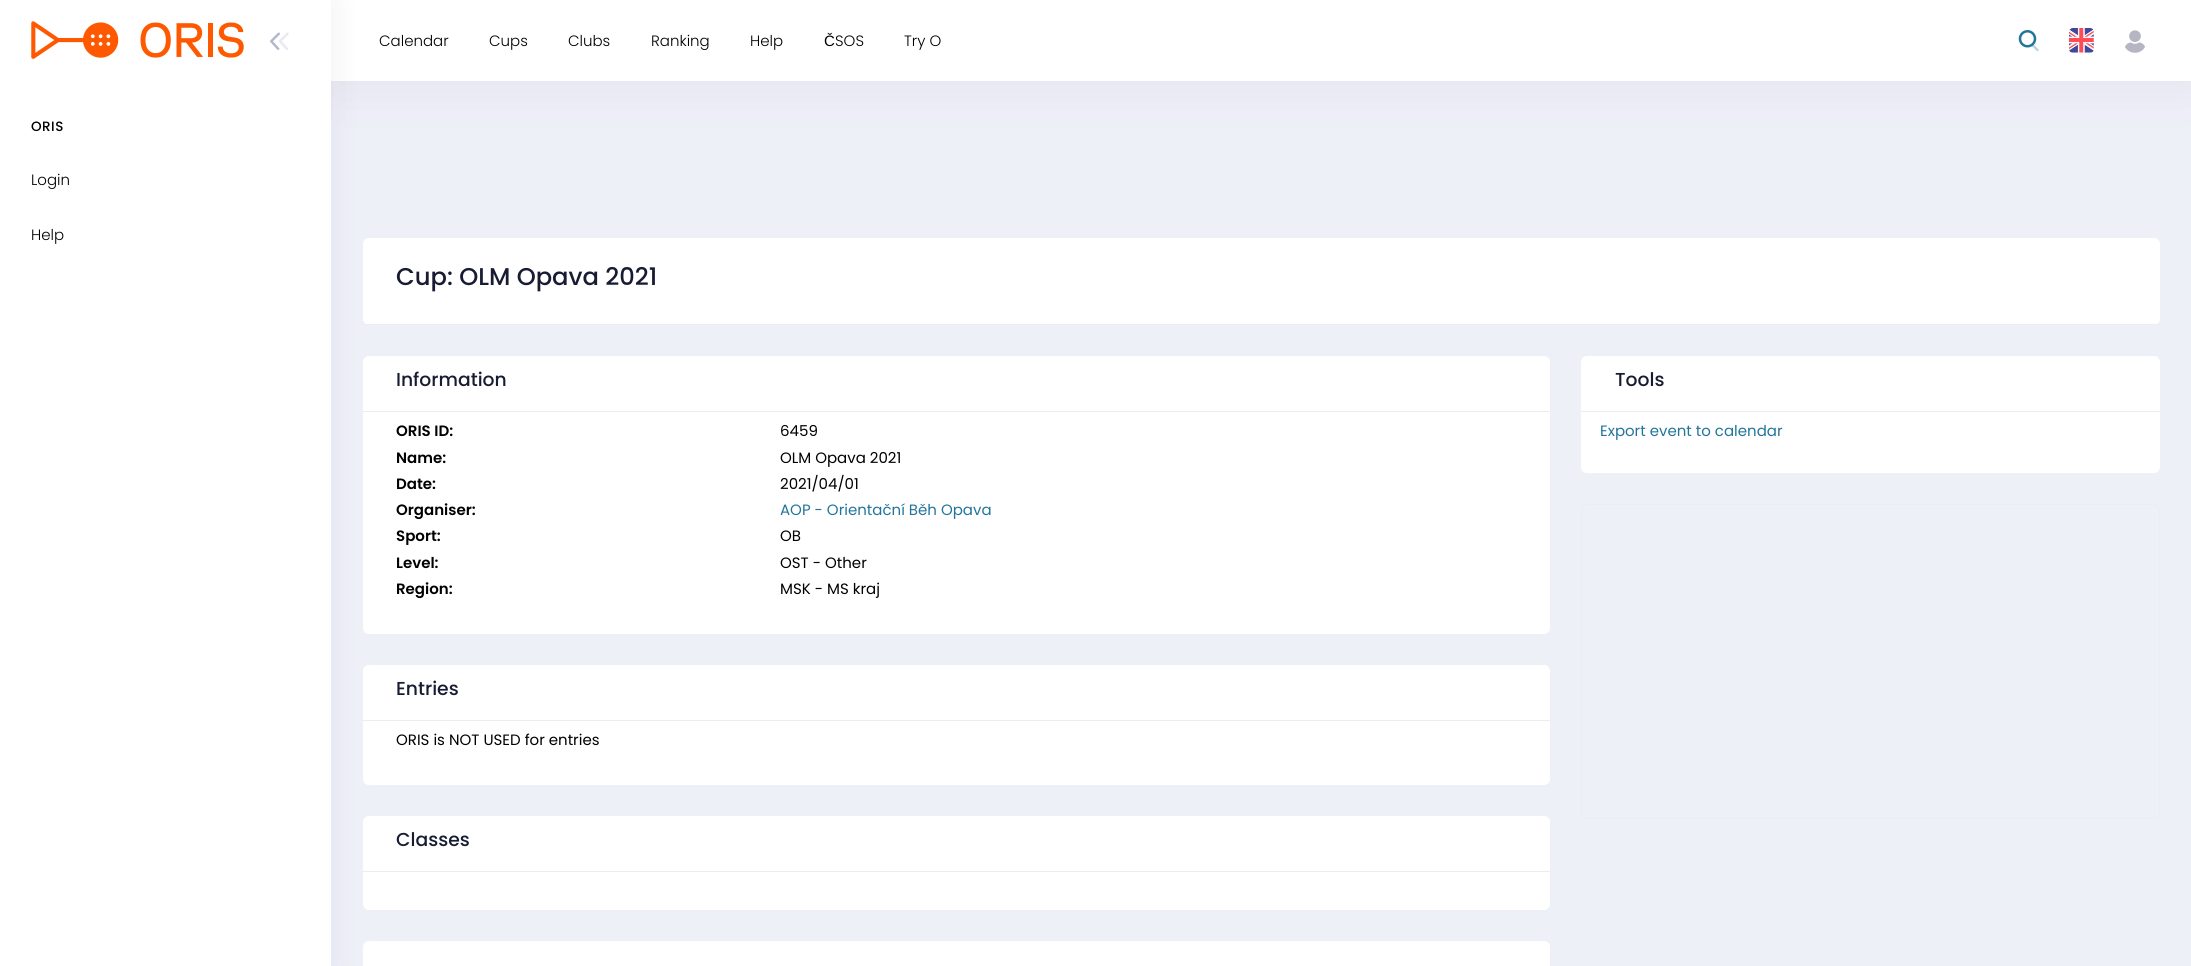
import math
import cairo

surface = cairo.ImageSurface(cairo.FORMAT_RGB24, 2191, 966)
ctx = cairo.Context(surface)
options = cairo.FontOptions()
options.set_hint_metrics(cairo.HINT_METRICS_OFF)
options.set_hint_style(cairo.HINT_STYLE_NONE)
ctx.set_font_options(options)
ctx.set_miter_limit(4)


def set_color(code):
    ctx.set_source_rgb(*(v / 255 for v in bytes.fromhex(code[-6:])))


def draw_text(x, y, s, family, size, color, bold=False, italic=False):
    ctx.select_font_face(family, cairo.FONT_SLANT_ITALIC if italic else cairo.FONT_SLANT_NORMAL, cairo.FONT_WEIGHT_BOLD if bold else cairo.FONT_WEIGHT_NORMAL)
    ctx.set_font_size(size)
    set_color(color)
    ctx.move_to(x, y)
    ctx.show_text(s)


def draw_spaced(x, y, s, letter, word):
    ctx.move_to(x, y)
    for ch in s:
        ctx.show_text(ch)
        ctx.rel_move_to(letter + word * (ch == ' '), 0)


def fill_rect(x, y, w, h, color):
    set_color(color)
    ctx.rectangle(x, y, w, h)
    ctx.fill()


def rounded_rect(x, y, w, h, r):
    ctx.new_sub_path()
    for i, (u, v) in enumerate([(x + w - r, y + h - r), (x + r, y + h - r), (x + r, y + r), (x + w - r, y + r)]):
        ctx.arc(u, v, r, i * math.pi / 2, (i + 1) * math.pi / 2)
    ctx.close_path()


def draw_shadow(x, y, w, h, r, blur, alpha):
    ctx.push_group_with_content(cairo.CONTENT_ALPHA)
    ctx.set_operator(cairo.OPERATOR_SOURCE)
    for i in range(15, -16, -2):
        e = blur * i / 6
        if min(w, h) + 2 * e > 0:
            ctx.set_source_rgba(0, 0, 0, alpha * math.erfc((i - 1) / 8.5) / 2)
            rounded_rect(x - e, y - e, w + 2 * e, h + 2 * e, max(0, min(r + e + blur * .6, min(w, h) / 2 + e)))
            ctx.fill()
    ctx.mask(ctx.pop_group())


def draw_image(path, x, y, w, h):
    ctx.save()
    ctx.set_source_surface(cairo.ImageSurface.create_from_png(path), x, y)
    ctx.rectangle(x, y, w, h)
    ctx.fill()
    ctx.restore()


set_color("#eef0f8")
ctx.paint()
set_color("#523f69")
draw_shadow(331, 0, 1860, 81, 0, 25, 0.1)
fill_rect(331, 0, 1860, 81, "#ffffff")
rounded_rect(363, 238, 1797, 87, 6)
ctx.fill()
fill_rect(363, 324, 1797, 1, "#ebedf3")
set_color("#ffffff")
rounded_rect(363, 356, 1187, 278, 6)
ctx.fill()
fill_rect(363, 411, 1187, 1, "#ebedf3")
set_color("#ffffff")
rounded_rect(363, 665, 1187, 120, 6)
ctx.fill()
fill_rect(363, 720, 1187, 1, "#ebedf3")
set_color("#ffffff")
rounded_rect(363, 816, 1187, 94, 6)
ctx.fill()
fill_rect(363, 871, 1187, 1, "#ebedf3")
set_color("#ffffff")
rounded_rect(363, 941, 1187, 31, 6)
ctx.fill()
set_color("#523f69")
draw_shadow(0, 0, 331, 966, 0, 17.5, 0.08)
fill_rect(0, 0, 331, 966, "#ffffff")
draw_image("assets/img1.png", 31, 21, 213, 38)
draw_image("assets/img2.png", 270, 32, 19, 18)
ctx.select_font_face("Poppins Medium")
ctx.set_font_size(13.5)
set_color("#000000")
draw_spaced(31, 131, "ORIS", 0.5, 0)
draw_text(31, 185, "Login", "Poppins Light", 15, "#000000")
draw_text(31, 240, "Help", "Poppins Light", 15, "#000000")
draw_text(379, 46, "Calendar", "Poppins Light", 15, "#000000")
draw_text(489, 46, "Cups", "Poppins Light", 15, "#000000")
draw_text(568, 46, "Clubs", "Poppins Light", 15, "#000000")
draw_text(651, 46, "Ranking", "Poppins Light", 15, "#000000")
draw_text(750, 46, "Help", "Poppins Light", 15, "#000000")
draw_text(824, 46, "Č", "Liberation Sans", 15, "#000000")
draw_text(835, 46, "SOS", "Poppins Light", 15, "#000000")
draw_text(904, 46, "Try O", "Poppins Light", 15, "#000000")
draw_image("assets/img3.png", 2018, 30, 21, 22)
draw_image("assets/img4.png", 2069, 28, 25, 25)
draw_image("assets/img5.png", 2125, 30, 20, 23)
draw_text(396, 285, "Cup: OLM Opava 2021", "Poppins Medium", 24.25, "#181c32")
draw_text(396, 386, "Information", "Poppins Medium", 18.75, "#181c32")
draw_text(396, 436, "ORIS ID:", "Poppins SemiBold", 15, "#000000")
draw_text(780, 436, "6459", "Poppins", 15, "#000000")
draw_text(396, 463, "Name:", "Poppins SemiBold", 15, "#000000")
draw_text(780, 463, "OLM Opava 2021", "Poppins", 15, "#000000")
draw_text(396, 489, "Date:", "Poppins SemiBold", 15, "#000000")
draw_text(780, 489, "2021/04/01", "Poppins", 15, "#000000")
draw_text(396, 515, "Organiser:", "Poppins SemiBold", 15, "#000000")
draw_text(780, 515, "AOP - Orientační Běh Opava", "Poppins", 15, "#21759b")
draw_text(396, 541, "Sport:", "Poppins SemiBold", 15, "#000000")
draw_text(780, 541, "OB", "Poppins", 15, "#000000")
draw_text(396, 568, "Level:", "Poppins SemiBold", 15, "#000000")
draw_text(780, 568, "OST - Other", "Poppins", 15, "#000000")
draw_text(396, 594, "Region:", "Poppins SemiBold", 15, "#000000")
draw_text(780, 594, "MSK - MS kraj", "Poppins", 15, "#000000")
draw_text(396, 695, "Entries", "Poppins Medium", 18.75, "#181c32")
draw_text(396, 745, "ORIS is NOT USED for entries", "Poppins", 15, "#000000")
draw_text(396, 846, "Classes", "Poppins Medium", 18.75, "#181c32")
set_color("#ffffff")
rounded_rect(1581, 356, 579, 117, 6)
ctx.fill()
fill_rect(1581, 411, 579, 1, "#ebedf3")
draw_text(1615, 386, "Tools", "Poppins Medium", 18.75, "#181c32")
draw_text(1600, 436, "Export event to calendar", "Poppins", 15, "#21759b")
rounded_rect(1581.5, 504.5, 578, 314, 5.5)
set_color("#ebedf3")
ctx.set_line_width(1)
ctx.stroke()
surface.write_to_png("output.png")
